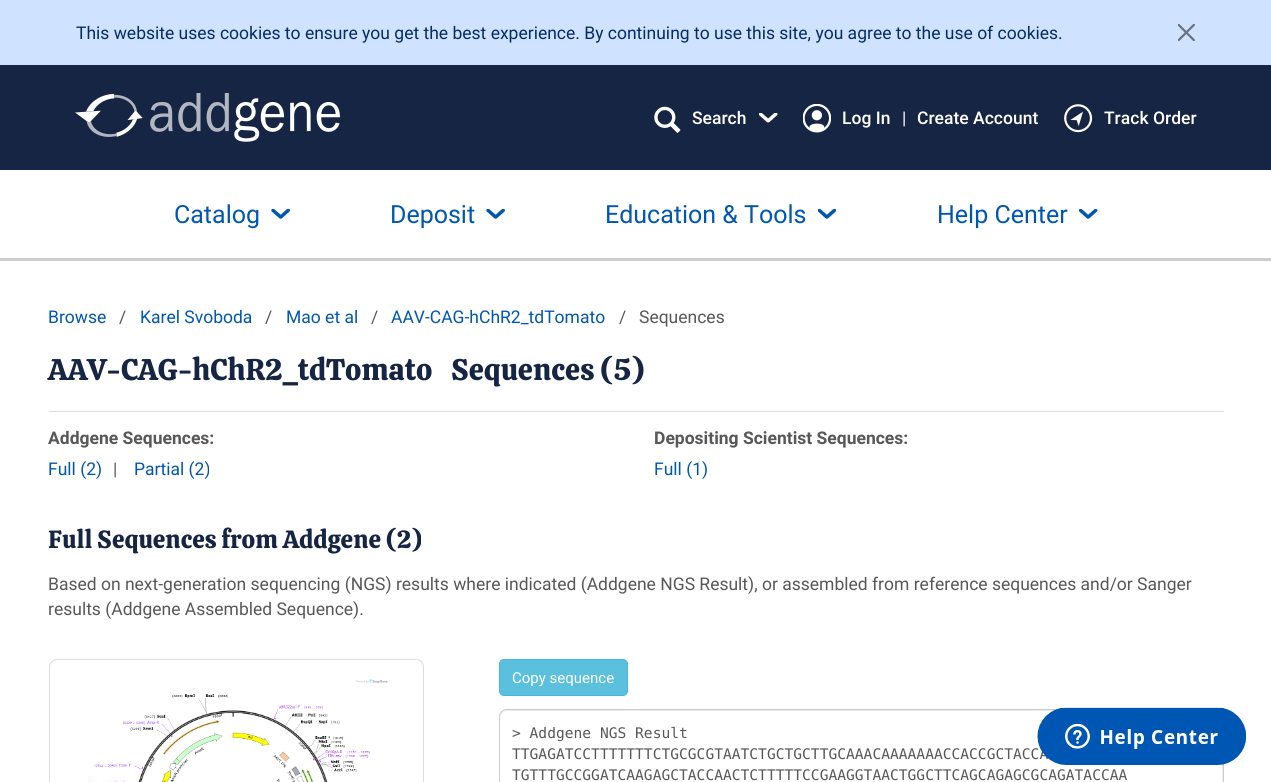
import math
import cairo

surface = cairo.ImageSurface(cairo.FORMAT_RGB24, 1271, 782)
ctx = cairo.Context(surface)
options = cairo.FontOptions()
options.set_hint_metrics(cairo.HINT_METRICS_OFF)
options.set_hint_style(cairo.HINT_STYLE_NONE)
ctx.set_font_options(options)
ctx.set_miter_limit(4)


def set_color(code):
    ctx.set_source_rgb(*(v / 255 for v in bytes.fromhex(code[-6:])))


def draw_text(x, y, s, family, size, color, bold=False, italic=False):
    ctx.select_font_face(family, cairo.FONT_SLANT_ITALIC if italic else cairo.FONT_SLANT_NORMAL, cairo.FONT_WEIGHT_BOLD if bold else cairo.FONT_WEIGHT_NORMAL)
    ctx.set_font_size(size)
    set_color(color)
    ctx.move_to(x, y)
    ctx.show_text(s)


def fill_rect(x, y, w, h, color):
    set_color(color)
    ctx.rectangle(x, y, w, h)
    ctx.fill()


def rounded_rect(x, y, w, h, r):
    ctx.new_sub_path()
    for i, (u, v) in enumerate([(x + w - r, y + h - r), (x + r, y + h - r), (x + r, y + r), (x + w - r, y + r)]):
        ctx.arc(u, v, r, i * math.pi / 2, (i + 1) * math.pi / 2)
    ctx.close_path()


def draw_image(path, x, y, w, h):
    ctx.save()
    ctx.set_source_surface(cairo.ImageSurface.create_from_png(path), x, y)
    ctx.rectangle(x, y, w, h)
    ctx.fill()
    ctx.restore()


set_color("#ffffff")
ctx.paint()
fill_rect(0, 0, 1271, 65, "#cfe2ff")
draw_text(76, 39, "This website uses cookies to ensure you get the best experience. By continuing to use this site, you agree to the use of cookies.", "Roboto", 17.5, "#052c65")
draw_image("assets/img1.png", 1178, 24, 17, 17)
fill_rect(0, 65, 1271, 105, "#172544")
draw_image("assets/img2.png", 75, 93, 265, 49)
draw_image("assets/img3.png", 654, 106, 27, 27)
draw_text(692, 124, "Search", "Roboto Medium", 17.5, "#ffffff")
draw_image("assets/img4.png", 759, 113, 19, 10)
draw_image("assets/img5.png", 803, 104, 28, 29)
draw_text(842, 124, "Log In", "Roboto Medium", 17.5, "#ffffff")
draw_text(902, 124, "|", "Roboto", 17.5, "#ffffff")
draw_text(917, 124, "Create Account", "Roboto Medium", 17.5, "#ffffff")
draw_image("assets/img6.png", 1064, 104, 29, 29)
draw_text(1104, 124, "Track Order", "Roboto Medium", 17.5, "#ffffff")
fill_rect(0, 258, 1271, 3, "#cccccc")
draw_text(174, 223, "Catalog", "Roboto", 25, "#0056b3")
draw_image("assets/img7.png", 271, 209, 19, 10)
draw_text(390, 223, "Deposit", "Roboto", 25, "#0056b3")
draw_image("assets/img7.png", 486, 209, 19, 10)
draw_text(605, 223, "Education & Tools", "Roboto", 25, "#0056b3")
draw_image("assets/img8.png", 818, 209, 18, 10)
draw_text(937, 223, "Help Center", "Roboto", 25, "#0056b3")
draw_image("assets/img9.png", 1079, 209, 19, 10)
draw_text(48, 323, "Browse", "Roboto", 17.5, "#0056b3")
draw_text(119, 323, "/", "Roboto", 17.5, "#585858")
draw_text(140, 323, "Karel Svoboda", "Roboto", 17.5, "#0056b3")
draw_text(265, 323, "/", "Roboto", 17.5, "#585858")
draw_text(286, 323, "Mao et al", "Roboto", 17.5, "#0056b3")
draw_text(371, 323, "/", "Roboto", 17.5, "#585858")
draw_text(391, 323, "AAV-CAG-hChR2_tdTomato", "Roboto", 17.5, "#0056b3")
draw_text(619, 323, "/", "Roboto", 17.5, "#585858")
draw_text(639, 323, "Sequences", "Roboto", 17.5, "#585858")
draw_text(48, 380, "AAV-CAG-hChR2_tdTomato", "Calistoga", 30, "#172544")
draw_text(451, 380, "Sequences (5)", "Calistoga", 30, "#172544")
fill_rect(49, 411, 1175, 1, "#dddddd")
draw_text(48, 444, "Addgene Sequences:", "Roboto", 17.5, "#585858", bold=True)
draw_text(48, 475, "Full (2)", "Roboto", 17.5, "#0056b3")
draw_text(113, 475, "|", "Roboto", 17.5, "#585858")
draw_text(134, 475, "Partial (2)", "Roboto", 17.5, "#0056b3")
draw_text(654, 444, "Depositing Scientist Sequences:", "Roboto", 17.5, "#585858", bold=True)
draw_text(654, 475, "Full (1)", "Roboto", 17.5, "#0056b3")
draw_text(48, 548, "Full Sequences from Addgene (2)", "Calistoga", 25, "#172544")
draw_text(48, 590, "Based on next-generation sequencing (NGS) results where indicated (Addgene NGS Result), or assembled from reference sequences and/or Sanger", "Roboto", 17.5, "#585858")
draw_text(48, 615, "results (Addgene Assembled Sequence).", "Roboto", 17.5, "#585858")
rounded_rect(49.5, 659.5, 374, 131, 7.5)
set_color("#dddddd")
ctx.set_line_width(1)
ctx.stroke()
draw_image("assets/img10.png", 89, 679, 299, 103)
set_color("#5bc0de")
rounded_rect(499.5, 659.5, 128, 36, 4.5)
ctx.fill_preserve()
set_color("#46b8da")
ctx.stroke()
draw_text(512, 683, "Copy sequence", "Roboto", 15, "#ffffff")
set_color("#ececec")
ctx.new_path()
ctx.move_to(506, 711)
ctx.line_to(1216, 711)
ctx.curve_to(1220, 711, 1222, 714, 1222, 718)
ctx.line_to(1222, 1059)
ctx.curve_to(1222, 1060, 1222, 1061, 1221, 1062)
ctx.curve_to(1222, 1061, 1223, 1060, 1223, 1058)
ctx.line_to(1223, 716)
ctx.curve_to(1223, 713, 1220, 710, 1217, 710)
ctx.line_to(506, 710)
ctx.curve_to(503, 710, 500, 713, 500, 716)
ctx.line_to(500, 718)
ctx.curve_to(500, 714, 503, 711, 506, 711)
ctx.close_path()
ctx.fill()
rounded_rect(499.5, 709.5, 724, 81, 7.5)
set_color("#cccccc")
ctx.stroke()
draw_text(512, 738, "> Addgene NGS Result", "DejaVu Sans Mono", 14.6, "#585858")
draw_text(512, 759, "TTGAGATCCTTTTTTTCTGCGCGTAATCTGCTGCTTGCAAACAAAAAAACCACCGCTACCA", "DejaVu Sans Mono", 14.6, "#585858")
draw_text(512, 780, "TGTTTGCCGGATCAAGAGCTACCAACTCTTTTTCCGAAGGTAACTGGCTTCAGCAGAGCGCAGATACCAA", "DejaVu Sans Mono", 14.6, "#585858")
draw_image("assets/img11.png", 1037, 707, 209, 58)
surface.write_to_png("output.png")
